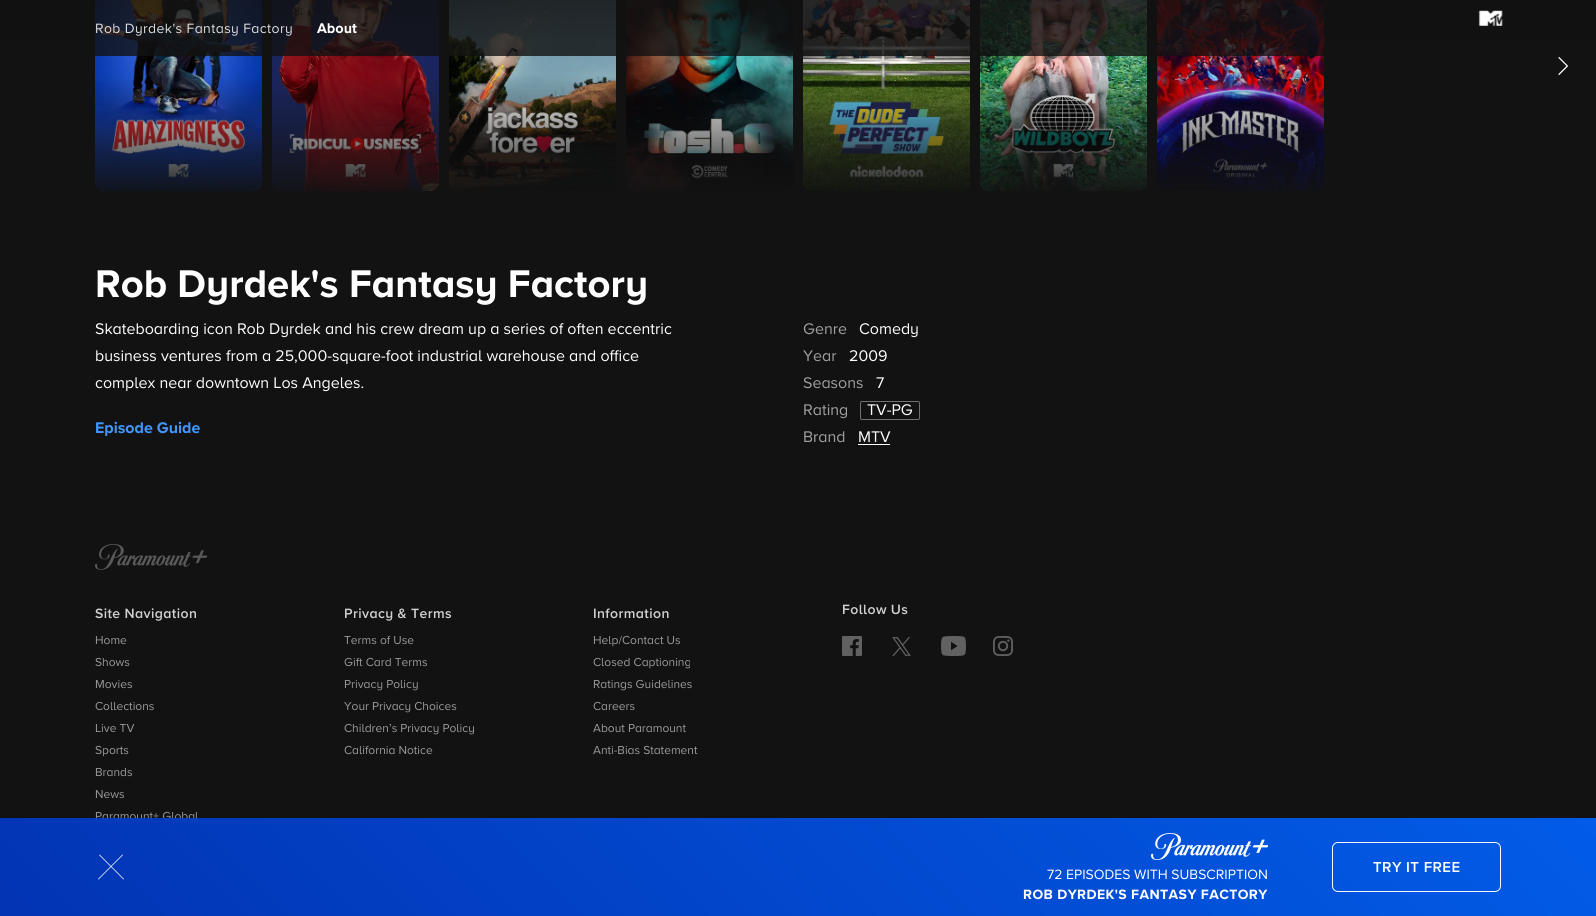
import math
import cairo

surface = cairo.ImageSurface(cairo.FORMAT_RGB24, 1596, 916)
ctx = cairo.Context(surface)
options = cairo.FontOptions()
options.set_hint_metrics(cairo.HINT_METRICS_OFF)
options.set_hint_style(cairo.HINT_STYLE_NONE)
ctx.set_font_options(options)
ctx.set_miter_limit(4)


def set_color(code):
    ctx.set_source_rgb(*(v / 255 for v in bytes.fromhex(code[-6:])))


def draw_text(x, y, s, family, size, color, bold=False, italic=False):
    ctx.select_font_face(family, cairo.FONT_SLANT_ITALIC if italic else cairo.FONT_SLANT_NORMAL, cairo.FONT_WEIGHT_BOLD if bold else cairo.FONT_WEIGHT_NORMAL)
    ctx.set_font_size(size)
    set_color(color)
    ctx.move_to(x, y)
    ctx.show_text(s)


def draw_spaced(x, y, s, letter, word):
    ctx.move_to(x, y)
    for ch in s:
        ctx.show_text(ch)
        ctx.rel_move_to(letter + word * (ch == ' '), 0)


def fill_rect(x, y, w, h, color):
    set_color(color)
    ctx.rectangle(x, y, w, h)
    ctx.fill()


def rounded_rect(x, y, w, h, r):
    ctx.new_sub_path()
    for i, (u, v) in enumerate([(x + w - r, y + h - r), (x + r, y + h - r), (x + r, y + r), (x + w - r, y + r)]):
        ctx.arc(u, v, r, i * math.pi / 2, (i + 1) * math.pi / 2)
    ctx.close_path()


def draw_image(path, x, y, w, h):
    ctx.save()
    ctx.set_source_surface(cairo.ImageSurface.create_from_png(path), x, y)
    ctx.rectangle(x, y, w, h)
    ctx.fill()
    ctx.restore()


set_color("#121212")
ctx.paint()
draw_image("assets/img1.png", 95, 0, 167, 191)
gradient = cairo.LinearGradient(178, -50, 179, 201)
gradient.add_color_stop_rgba(0.5, 0.071, 0.071, 0.071, 0)
gradient.add_color_stop_rgba(1, 0.071, 0.071, 0.071, 1)
ctx.set_source(gradient)
ctx.new_path()
ctx.move_to(95, -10)
ctx.line_to(262, -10)
ctx.line_to(262, 181)
ctx.curve_to(262, 186.5, 257.5, 191, 252, 191)
ctx.line_to(105, 191)
ctx.curve_to(99.5, 191, 95, 186.5, 95, 181)
ctx.close_path()
ctx.fill()
draw_image("assets/img2.png", 272, 0, 167, 191)
gradient = cairo.LinearGradient(356, -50, 356, 201)
gradient.add_color_stop_rgba(0.5, 0.071, 0.071, 0.071, 0)
gradient.add_color_stop_rgba(1, 0.071, 0.071, 0.071, 1)
ctx.set_source(gradient)
ctx.new_path()
ctx.move_to(272, -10)
ctx.line_to(439, -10)
ctx.line_to(439, 181)
ctx.curve_to(439, 186.5, 434.5, 191, 429, 191)
ctx.line_to(282, 191)
ctx.curve_to(276.5, 191, 272, 186.5, 272, 181)
ctx.close_path()
ctx.fill()
draw_image("assets/img3.png", 449, 0, 167, 191)
gradient = cairo.LinearGradient(533, -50, 533, 201)
gradient.add_color_stop_rgba(0.5, 0.071, 0.071, 0.071, 0)
gradient.add_color_stop_rgba(1, 0.071, 0.071, 0.071, 1)
ctx.set_source(gradient)
ctx.new_path()
ctx.move_to(449, -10)
ctx.line_to(616, -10)
ctx.line_to(616, 181)
ctx.curve_to(616, 186.5, 611.5, 191, 606, 191)
ctx.line_to(459, 191)
ctx.curve_to(453.5, 191, 449, 186.5, 449, 181)
ctx.close_path()
ctx.fill()
draw_image("assets/img4.png", 626, 0, 167, 191)
gradient = cairo.LinearGradient(710, -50, 710, 201)
gradient.add_color_stop_rgba(0.5, 0.071, 0.071, 0.071, 0)
gradient.add_color_stop_rgba(1, 0.071, 0.071, 0.071, 1)
ctx.set_source(gradient)
ctx.new_path()
ctx.move_to(626, -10)
ctx.line_to(793, -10)
ctx.line_to(793, 181)
ctx.curve_to(793, 186.5, 788.5, 191, 783, 191)
ctx.line_to(636, 191)
ctx.curve_to(630.5, 191, 626, 186.5, 626, 181)
ctx.close_path()
ctx.fill()
draw_image("assets/img5.png", 803, 0, 167, 191)
gradient = cairo.LinearGradient(887, -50, 887, 201)
gradient.add_color_stop_rgba(0.5, 0.071, 0.071, 0.071, 0)
gradient.add_color_stop_rgba(1, 0.071, 0.071, 0.071, 1)
ctx.set_source(gradient)
ctx.new_path()
ctx.move_to(803, -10)
ctx.line_to(970, -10)
ctx.line_to(970, 181)
ctx.curve_to(970, 186.5, 965.5, 191, 960, 191)
ctx.line_to(813, 191)
ctx.curve_to(807.5, 191, 803, 186.5, 803, 181)
ctx.close_path()
ctx.fill()
draw_image("assets/img6.png", 980, 0, 167, 191)
gradient = cairo.LinearGradient(1064, -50, 1064, 201)
gradient.add_color_stop_rgba(0.5, 0.071, 0.071, 0.071, 0)
gradient.add_color_stop_rgba(1, 0.071, 0.071, 0.071, 1)
ctx.set_source(gradient)
ctx.new_path()
ctx.move_to(980, -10)
ctx.line_to(1147, -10)
ctx.line_to(1147, 181)
ctx.curve_to(1147, 186.5, 1142.5, 191, 1137, 191)
ctx.line_to(990, 191)
ctx.curve_to(984.5, 191, 980, 186.5, 980, 181)
ctx.close_path()
ctx.fill()
draw_image("assets/img7.png", 1157, 0, 167, 191)
gradient = cairo.LinearGradient(1241, -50, 1241, 201)
gradient.add_color_stop_rgba(0.5, 0.071, 0.071, 0.071, 0)
gradient.add_color_stop_rgba(1, 0.071, 0.071, 0.071, 1)
ctx.set_source(gradient)
ctx.new_path()
ctx.move_to(1157, -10)
ctx.line_to(1324, -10)
ctx.line_to(1324, 181)
ctx.curve_to(1324, 186.5, 1319.5, 191, 1314, 191)
ctx.line_to(1167, 191)
ctx.curve_to(1161.5, 191, 1157, 186.5, 1157, 181)
ctx.close_path()
ctx.fill()
gradient = cairo.LinearGradient(798, -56, 798, 44)
gradient.add_color_stop_rgba(0, 0, 0, 0, 0.6)
gradient.add_color_stop_rgba(1, 0, 0, 0, 0)
ctx.set_source(gradient)
ctx.rectangle(0, 0, 1596, 40)
ctx.fill()
ctx.set_source_rgba(0.071, 0.071, 0.071, 0.8)
ctx.rectangle(0, 0, 1596, 56)
ctx.fill()
ctx.select_font_face("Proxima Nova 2")
ctx.set_font_size(14)
set_color("#dcddde")
draw_spaced(95, 33, "Rob Dyrdek's Fantasy Factory", 0.4, 0)
ctx.select_font_face("Proxima Nova", cairo.FONT_SLANT_NORMAL, cairo.FONT_WEIGHT_BOLD)
set_color("#ffffff")
draw_spaced(317, 33, "About", 0.4, 0)
draw_image("assets/img8.png", 1558, 57, 10, 18)
draw_image("assets/img9.png", 1478, 10, 25, 16)
draw_text(95, 297, "Rob Dyrdek's Fantasy Factory", "Proxima Nova", 40, "#ffffff")
draw_text(95, 334, "Skateboarding icon Rob Dyrdek and his crew dream up a series of often eccentric", "Proxima Nova 2", 16, "#ffffff")
draw_text(95, 361, "business ventures from a 25,000-square-foot industrial warehouse and office", "Proxima Nova 2", 16, "#ffffff")
draw_text(95, 388, "complex near downtown Los Angeles.", "Proxima Nova 2", 16, "#ffffff")
draw_text(803, 334, "Genre", "Proxima Nova 2", 16, "#a0a0a0")
draw_text(859, 334, "Comedy", "Proxima Nova 2", 16, "#ffffff")
draw_text(803, 361, "Year", "Proxima Nova 2", 16, "#a0a0a0")
draw_text(849, 361, "2009", "Proxima Nova 2", 16, "#ffffff")
draw_text(803, 388, "Seasons", "Proxima Nova 2", 16, "#a0a0a0")
draw_text(876, 388, "7", "Proxima Nova 2", 16, "#ffffff")
draw_text(803, 415, "Rating", "Proxima Nova 2", 16, "#a0a0a0")
rounded_rect(860.5, 401.5, 59, 18, 1.5)
set_color("#717171")
ctx.set_line_width(1)
ctx.stroke()
draw_text(867, 415, "TV-PG", "Proxima Nova 2", 16, "#ffffff")
draw_text(803, 442, "Brand", "Proxima Nova 2", 16, "#a0a0a0")
draw_text(858, 442, "MTV", "Proxima Nova 2", 16, "#ffffff")
fill_rect(858, 444, 32, 1, "#ffffff")
draw_text(95, 433, "Episode Guide", "Proxima Nova", 16, "#4197fe")
draw_text(95, 820, "Paramount+ Global", "Proxima Nova 2", 12, "#999999")
gradient = cairo.LinearGradient(375, 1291, 1222, 444)
gradient.add_color_stop_rgba(0, 0, 0.216, 0.773, 0.9)
gradient.add_color_stop_rgba(1, 0, 0.392, 1, 0.9)
ctx.set_source(gradient)
ctx.rectangle(0, 818, 1596, 98)
ctx.fill()
set_color("#ffffff")
ctx.new_path()
ctx.move_to(122.5, 854.5)
ctx.line_to(123, 855)
ctx.line_to(98.5, 879.5)
ctx.line_to(98, 879)
ctx.close_path()
ctx.fill()
ctx.new_path()
ctx.move_to(99, 855)
ctx.line_to(99.5, 854.5)
ctx.line_to(124, 879)
ctx.line_to(123.5, 879.5)
ctx.close_path()
ctx.fill()
rounded_rect(1332.5, 842.5, 168, 49, 5.5)
set_color("#fafafa")
ctx.stroke()
ctx.select_font_face("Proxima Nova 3")
ctx.set_font_size(15)
set_color("#ffffff")
draw_spaced(1373, 872, "TRY IT FREE", 0.4, 0)
draw_image("assets/img10.png", 1151, 833, 117, 27)
draw_text(1047, 879, "72 EPISODES WITH SUBSCRIPTION", "Proxima Nova 2", 14, "#ffffff")
ctx.select_font_face("Proxima Nova")
draw_spaced(1023, 899, "ROB DYRDEK'S FANTASY FACTORY", 0.4, 0)
draw_image("assets/img11.png", 95, 544, 113, 26)
ctx.select_font_face("Proxima Nova 3")
set_color("#d0d0d0")
draw_spaced(95, 618, "Site Navigation", 0.4, 0)
draw_text(95, 644, "Home", "Proxima Nova 2", 12, "#999999")
draw_text(95, 666, "Shows", "Proxima Nova 2", 12, "#999999")
draw_text(95, 688, "Movies", "Proxima Nova 2", 12, "#999999")
draw_text(95, 710, "Collections", "Proxima Nova 2", 12, "#999999")
draw_text(95, 732, "Live TV", "Proxima Nova 2", 12, "#999999")
draw_text(95, 754, "Sports", "Proxima Nova 2", 12, "#999999")
draw_text(95, 776, "Brands", "Proxima Nova 2", 12, "#999999")
draw_text(95, 798, "News", "Proxima Nova 2", 12, "#999999")
ctx.select_font_face("Proxima Nova 3")
ctx.set_font_size(14)
set_color("#d0d0d0")
draw_spaced(344, 618, "Privacy & Terms", 0.4, 0)
draw_text(344, 644, "Terms of Use", "Proxima Nova 2", 12, "#999999")
draw_text(344, 666, "Gift Card Terms", "Proxima Nova 2", 12, "#999999")
draw_text(344, 688, "Privacy Policy", "Proxima Nova 2", 12, "#999999")
draw_text(344, 710, "Your Privacy Choices", "Proxima Nova 2", 12, "#999999")
draw_text(344, 732, "Children’s Privacy Policy", "Proxima Nova 2", 12, "#999999")
draw_text(344, 754, "California Notice", "Proxima Nova 2", 12, "#999999")
ctx.select_font_face("Proxima Nova 3")
ctx.set_font_size(14)
set_color("#d0d0d0")
draw_spaced(593, 618, "Information", 0.4, 0)
draw_text(593, 644, "Help/Contact Us", "Proxima Nova 2", 12, "#999999")
draw_text(593, 666, "Closed Captioning", "Proxima Nova 2", 12, "#999999")
draw_text(593, 688, "Ratings Guidelines", "Proxima Nova 2", 12, "#999999")
draw_text(593, 710, "Careers", "Proxima Nova 2", 12, "#999999")
draw_text(593, 732, "About Paramount", "Proxima Nova 2", 12, "#999999")
draw_text(593, 754, "Anti-Bias Statement", "Proxima Nova 2", 12, "#999999")
ctx.select_font_face("Proxima Nova 3")
ctx.set_font_size(14)
set_color("#d0d0d0")
draw_spaced(842, 614, "Follow Us", 0.4, 0)
draw_image("assets/img12.png", 842, 636, 20, 20)
draw_image("assets/img13.png", 892, 637, 19, 19)
draw_image("assets/img14.png", 941, 636, 25, 20)
draw_image("assets/img15.png", 993, 636, 20, 20)
surface.write_to_png("output.png")
